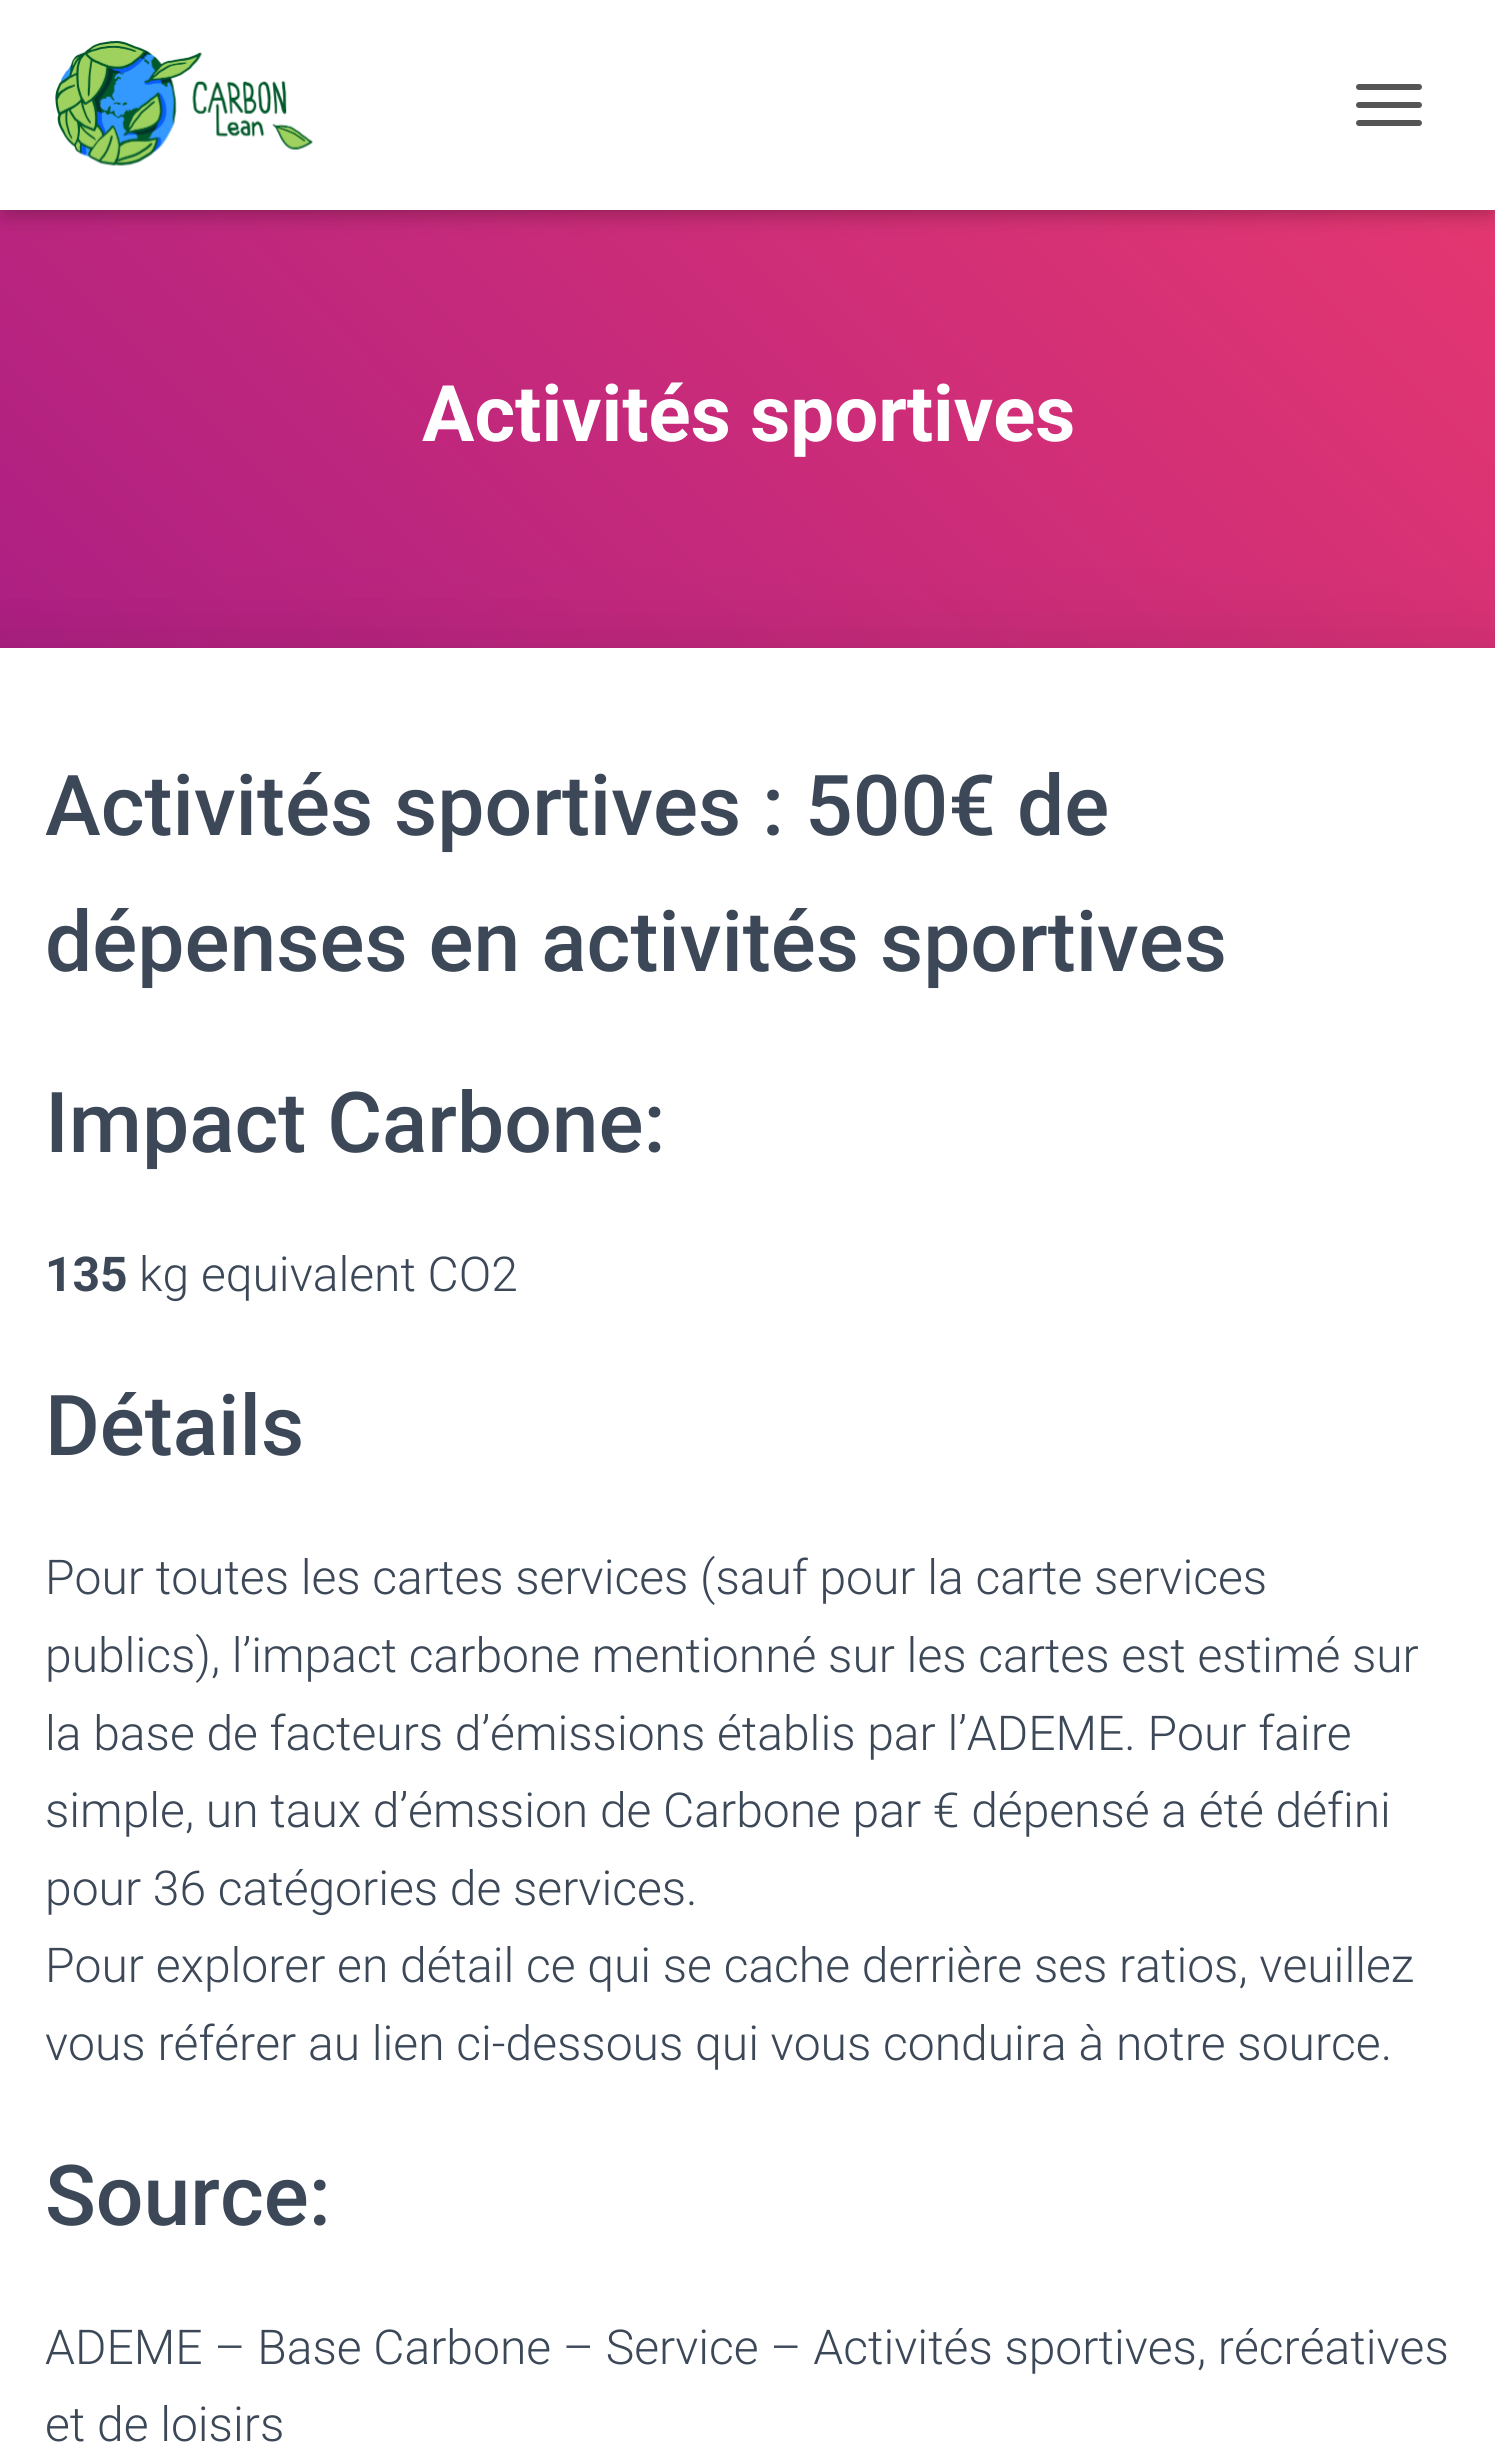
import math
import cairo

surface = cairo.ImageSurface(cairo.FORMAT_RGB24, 1495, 2463)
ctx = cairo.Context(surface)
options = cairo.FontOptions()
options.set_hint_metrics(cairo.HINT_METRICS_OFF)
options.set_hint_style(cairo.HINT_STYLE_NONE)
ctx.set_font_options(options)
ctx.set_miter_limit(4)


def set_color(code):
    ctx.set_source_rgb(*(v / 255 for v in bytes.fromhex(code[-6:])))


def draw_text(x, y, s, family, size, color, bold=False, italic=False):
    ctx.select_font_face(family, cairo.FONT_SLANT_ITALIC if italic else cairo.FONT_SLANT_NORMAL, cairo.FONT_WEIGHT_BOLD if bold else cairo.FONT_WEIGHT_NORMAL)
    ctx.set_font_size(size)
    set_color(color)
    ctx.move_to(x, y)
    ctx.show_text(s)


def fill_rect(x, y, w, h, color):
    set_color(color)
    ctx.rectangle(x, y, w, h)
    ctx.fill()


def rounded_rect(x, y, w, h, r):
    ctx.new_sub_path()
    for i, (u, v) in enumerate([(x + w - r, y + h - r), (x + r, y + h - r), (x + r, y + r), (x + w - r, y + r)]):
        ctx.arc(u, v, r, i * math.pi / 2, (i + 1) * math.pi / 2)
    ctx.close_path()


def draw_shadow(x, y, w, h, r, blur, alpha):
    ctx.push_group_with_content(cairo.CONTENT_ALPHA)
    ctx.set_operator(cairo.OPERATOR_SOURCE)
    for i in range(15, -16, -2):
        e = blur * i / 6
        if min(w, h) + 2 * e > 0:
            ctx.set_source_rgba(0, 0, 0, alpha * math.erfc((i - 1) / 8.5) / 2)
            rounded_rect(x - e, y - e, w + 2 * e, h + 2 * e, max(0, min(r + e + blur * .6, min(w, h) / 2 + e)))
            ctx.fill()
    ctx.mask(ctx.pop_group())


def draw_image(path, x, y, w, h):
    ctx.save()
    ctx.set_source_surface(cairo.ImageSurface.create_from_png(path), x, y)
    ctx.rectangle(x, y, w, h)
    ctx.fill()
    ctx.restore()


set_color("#ffffff")
ctx.paint()
gradient = cairo.LinearGradient(167, 995, 1330, -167)
gradient.add_color_stop_rgba(0, 0.659, 0.114, 0.518, 1)
gradient.add_color_stop_rgba(1, 0.918, 0.224, 0.435, 1)
ctx.set_source(gradient)
ctx.rectangle(0, 210, 1495, 438)
ctx.fill()
set_color("#000000")
draw_shadow(6, 18, 1485, 198, 0, 7.5, 0.1)
draw_shadow(0, 3, 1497, 210, 0, 15, 0.12)
draw_shadow(18, 21, 1461, 174, 0, 15, 0.42)
fill_rect(0, 0, 1495, 210, "#ffffff")
draw_image("assets/img1.png", 55, 40, 258, 126)
set_color("#555555")
rounded_rect(1356, 84, 66, 6, 3)
ctx.fill()
rounded_rect(1356, 102, 66, 6, 3)
ctx.fill()
rounded_rect(1356, 120, 66, 6, 3)
ctx.fill()
draw_text(422, 441, "Activités sportives", "Roboto", 78, "#ffffff", bold=True)
set_color("#000000")
draw_shadow(-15, 651, 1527, 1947, 0, 45, 0.12)
fill_rect(0, 648, 1495, 1815, "#ffffff")
draw_text(45, 835, "Activités sportives : 500€ de", "Roboto Medium", 84, "#3c4858")
draw_text(45, 971, "dépenses en activités sportives", "Roboto Medium", 84, "#3c4858")
draw_text(45, 1152, "Impact Carbone:", "Roboto Medium", 84, "#3c4858")
draw_text(45, 1291, "135", "Roboto", 48, "#3c4858", bold=True)
draw_text(139, 1291, "kg equivalent CO2", "Roboto Light", 48, "#3c4858")
draw_text(45, 1455, "Détails", "Roboto Medium", 84, "#3c4858")
draw_text(45, 1594, "Pour toutes les cartes services (sauf pour la carte services", "Roboto Light", 48, "#3c4858")
draw_text(45, 1672, "publics), l’impact carbone mentionné sur les cartes est estimé sur", "Roboto Light", 48, "#3c4858")
draw_text(45, 1750, "la base de facteurs d’émissions établis par l’ADEME. Pour faire", "Roboto Light", 48, "#3c4858")
draw_text(45, 1827, "simple, un taux d’émssion de Carbone par € dépensé a été défini", "Roboto Light", 48, "#3c4858")
draw_text(45, 1905, "pour 36 catégories de services.", "Roboto Light", 48, "#3c4858")
draw_text(45, 1982, "Pour explorer en détail ce qui se cache derrière ses ratios, veuillez", "Roboto Light", 48, "#3c4858")
draw_text(45, 2060, "vous référer au lien ci-dessous qui vous conduira à notre source.", "Roboto Light", 48, "#3c4858")
draw_text(45, 2225, "Source:", "Roboto Medium", 84, "#3c4858")
draw_text(45, 2364, "ADEME – Base Carbone – Service – Activités sportives, récréatives", "Roboto Light", 48, "#3c4858")
draw_text(45, 2441, "et de loisirs", "Roboto Light", 48, "#3c4858")
surface.write_to_png("output.png")
